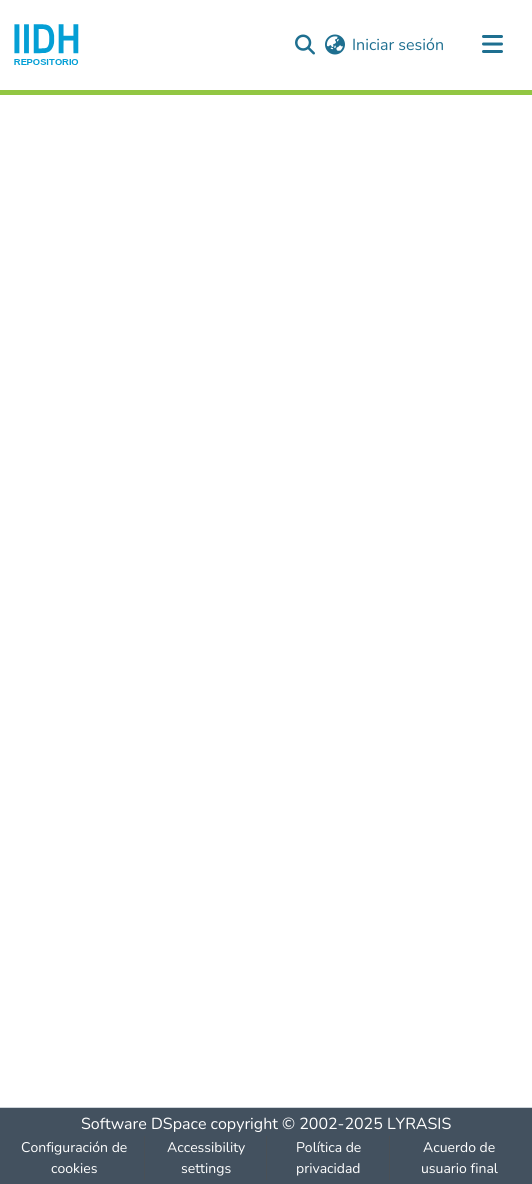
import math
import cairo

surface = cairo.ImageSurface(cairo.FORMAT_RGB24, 532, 1184)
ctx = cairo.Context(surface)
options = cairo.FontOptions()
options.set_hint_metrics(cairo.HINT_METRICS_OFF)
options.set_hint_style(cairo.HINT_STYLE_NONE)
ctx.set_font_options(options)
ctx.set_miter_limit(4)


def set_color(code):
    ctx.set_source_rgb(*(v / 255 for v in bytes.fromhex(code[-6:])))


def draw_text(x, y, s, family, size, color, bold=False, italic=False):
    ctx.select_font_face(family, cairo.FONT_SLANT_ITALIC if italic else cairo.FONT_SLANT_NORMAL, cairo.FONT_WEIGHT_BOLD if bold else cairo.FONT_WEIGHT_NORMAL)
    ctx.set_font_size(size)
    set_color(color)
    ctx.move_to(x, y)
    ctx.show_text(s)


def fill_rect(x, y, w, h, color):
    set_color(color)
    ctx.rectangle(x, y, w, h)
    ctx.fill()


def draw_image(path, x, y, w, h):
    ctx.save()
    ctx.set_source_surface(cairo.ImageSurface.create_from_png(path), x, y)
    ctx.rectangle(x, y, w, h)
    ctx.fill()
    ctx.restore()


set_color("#ffffff")
ctx.paint()
fill_rect(0, 90, 532, 5, "#92c642")
draw_image("assets/img1.png", 14, 24, 65, 41)
draw_image("assets/img2.png", 295, 34, 20, 21)
draw_image("assets/img3.png", 325, 34, 20, 21)
draw_text(352, 50, "Iniciar sesión", "Nunito", 16, "#1e6f90")
draw_image("assets/img4.png", 482, 35, 21, 18)
fill_rect(0, 1108, 532, 76, "#43515f")
fill_rect(0, 1107, 532, 1, "#ced4da")
draw_text(81, 1129, "Software DSpace copyright © 2002-2025 LYRASIS", "Nunito", 16, "#ffffff")
draw_text(21, 1152, "Configuración de", "Nunito", 14, "#ffffff")
draw_text(51, 1173, "cookies", "Nunito", 14, "#ffffff")
fill_rect(144, 1136, 1, 44, "#495057")
draw_text(167, 1152, "Accessibility", "Nunito", 14, "#ffffff")
draw_text(181, 1173, "settings", "Nunito", 14, "#ffffff")
fill_rect(266, 1136, 1, 44, "#495057")
draw_text(296, 1152, "Política de", "Nunito", 14, "#ffffff")
draw_text(296, 1173, "privacidad", "Nunito", 14, "#ffffff")
fill_rect(389, 1136, 1, 44, "#495057")
draw_text(423, 1152, "Acuerdo de", "Nunito", 14, "#ffffff")
draw_text(421, 1173, "usuario final", "Nunito", 14, "#ffffff")
surface.write_to_png("output.png")
